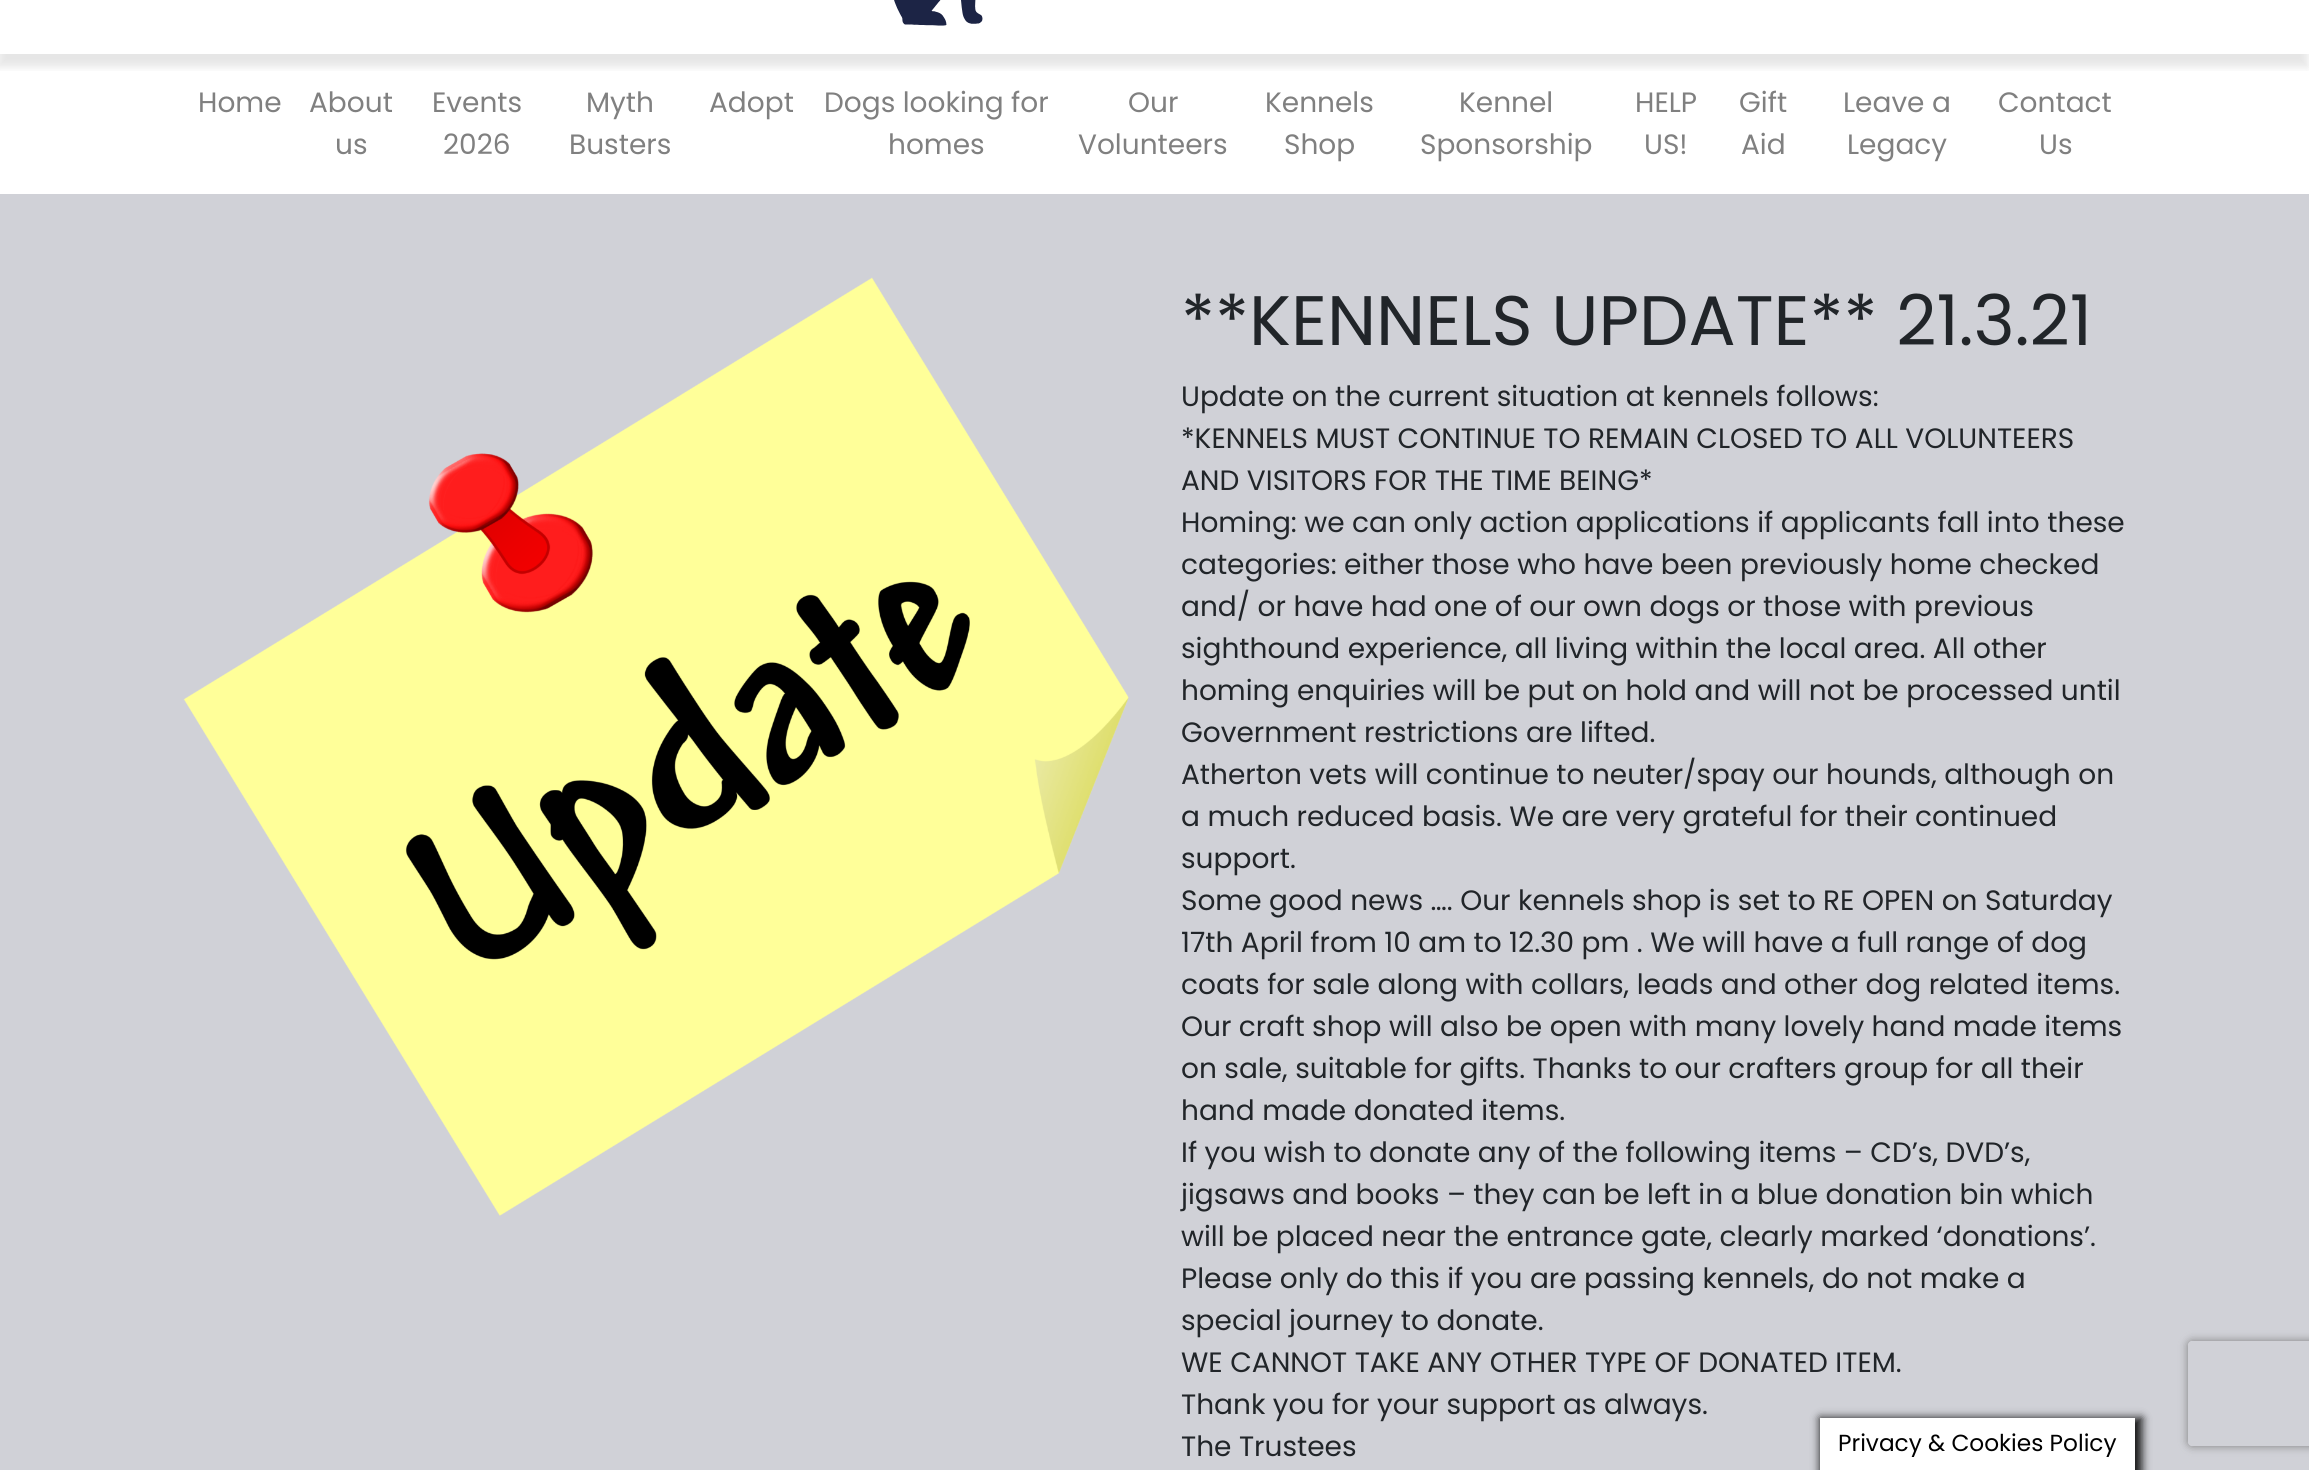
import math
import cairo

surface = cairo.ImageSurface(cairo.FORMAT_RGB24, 2309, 1470)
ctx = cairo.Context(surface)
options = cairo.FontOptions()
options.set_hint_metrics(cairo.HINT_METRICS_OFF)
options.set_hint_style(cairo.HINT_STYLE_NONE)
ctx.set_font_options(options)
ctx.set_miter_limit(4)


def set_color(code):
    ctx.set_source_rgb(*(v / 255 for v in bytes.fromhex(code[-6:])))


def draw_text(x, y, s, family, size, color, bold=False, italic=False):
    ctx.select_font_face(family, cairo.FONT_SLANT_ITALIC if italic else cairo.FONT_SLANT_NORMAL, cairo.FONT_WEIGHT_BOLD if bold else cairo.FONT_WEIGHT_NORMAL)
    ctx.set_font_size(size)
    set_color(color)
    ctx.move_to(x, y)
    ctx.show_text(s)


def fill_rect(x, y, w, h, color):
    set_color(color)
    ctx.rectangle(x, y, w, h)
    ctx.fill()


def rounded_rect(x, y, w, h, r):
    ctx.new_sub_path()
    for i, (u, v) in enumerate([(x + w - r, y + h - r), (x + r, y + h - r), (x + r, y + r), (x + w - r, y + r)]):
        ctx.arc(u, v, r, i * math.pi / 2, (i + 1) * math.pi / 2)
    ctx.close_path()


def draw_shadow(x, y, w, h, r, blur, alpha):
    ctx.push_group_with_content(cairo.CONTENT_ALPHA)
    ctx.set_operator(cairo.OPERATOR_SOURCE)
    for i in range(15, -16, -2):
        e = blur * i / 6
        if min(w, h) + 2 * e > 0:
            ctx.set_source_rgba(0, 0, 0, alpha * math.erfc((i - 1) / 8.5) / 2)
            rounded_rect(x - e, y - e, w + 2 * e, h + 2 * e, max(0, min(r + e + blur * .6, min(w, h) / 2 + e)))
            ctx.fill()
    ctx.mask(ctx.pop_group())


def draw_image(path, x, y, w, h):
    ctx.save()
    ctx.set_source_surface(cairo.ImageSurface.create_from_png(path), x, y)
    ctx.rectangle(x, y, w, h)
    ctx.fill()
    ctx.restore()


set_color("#ffffff")
ctx.paint()
ctx.save()
ctx.rectangle(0, 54, 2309, 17)
ctx.clip()
set_color("#000000")
draw_shadow(-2, -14, 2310, 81, 0, 4.5, 0.1)
ctx.restore()
draw_image("assets/img1.png", 894, 0, 89, 26)
draw_text(198, 112, "Home", "Poppins", 28, "#808080")
draw_text(309, 112, "About", "Poppins", 28, "#808080")
draw_text(335, 154, "us", "Poppins", 28, "#808080")
draw_text(432, 112, "Events", "Poppins", 28, "#808080")
draw_text(443, 154, "2026", "Poppins", 28, "#808080")
draw_text(586, 112, "Myth", "Poppins", 28, "#808080")
draw_text(569, 154, "Busters", "Poppins", 28, "#808080")
draw_text(709, 112, "Adopt", "Poppins", 28, "#808080")
draw_text(824, 112, "Dogs looking for", "Poppins", 28, "#808080")
draw_text(888, 154, "homes", "Poppins", 28, "#808080")
draw_text(1128, 112, "Our", "Poppins", 28, "#808080")
draw_text(1078, 154, "Volunteers", "Poppins", 28, "#808080")
draw_text(1265, 112, "Kennels", "Poppins", 28, "#808080")
draw_text(1284, 154, "Shop", "Poppins", 28, "#808080")
draw_text(1459, 112, "Kennel", "Poppins", 28, "#808080")
draw_text(1420, 154, "Sponsorship", "Poppins", 28, "#808080")
draw_text(1635, 112, "HELP", "Poppins", 28, "#808080")
draw_text(1644, 154, "US!", "Poppins", 28, "#808080")
draw_text(1739, 112, "Gift", "Poppins", 28, "#808080")
draw_text(1741, 154, "Aid", "Poppins", 28, "#808080")
draw_text(1843, 112, "Leave a", "Poppins", 28, "#808080")
draw_text(1847, 154, "Legacy", "Poppins", 28, "#808080")
draw_text(1998, 112, "Contact", "Poppins", 28, "#808080")
draw_text(2039, 154, "Us", "Poppins", 28, "#808080")
fill_rect(0, 194, 2309, 1276, "#d0d1d7")
draw_image("assets/img2.png", 183, 277, 946, 939)
draw_text(1181, 345, "**KENNELS UPDATE** 21.3.21", "Poppins", 70, "#212529")
draw_text(1181, 406, "Update on the current situation at kennels follows:", "Poppins", 28, "#212529")
draw_text(1181, 448, "*KENNELS MUST CONTINUE TO REMAIN CLOSED TO ALL VOLUNTEERS", "Poppins", 28, "#212529")
draw_text(1181, 490, "AND VISITORS FOR THE TIME BEING*", "Poppins", 28, "#212529")
draw_text(1181, 532, "Homing: we can only action applications if applicants fall into these", "Poppins", 28, "#212529")
draw_text(1181, 574, "categories: either those who have been previously home checked", "Poppins", 28, "#212529")
draw_text(1181, 616, "and/ or have had one of our own dogs or those with previous", "Poppins", 28, "#212529")
draw_text(1181, 658, "sighthound experience, all living within the local area. All other", "Poppins", 28, "#212529")
draw_text(1181, 700, "homing enquiries will be put on hold and will not be processed until", "Poppins", 28, "#212529")
draw_text(1181, 742, "Government restrictions are lifted.", "Poppins", 28, "#212529")
draw_text(1181, 784, "Atherton vets will continue to neuter/spay our hounds, although on", "Poppins", 28, "#212529")
draw_text(1181, 826, "a much reduced basis. We are very grateful for their continued", "Poppins", 28, "#212529")
draw_text(1181, 868, "support.", "Poppins", 28, "#212529")
draw_text(1181, 910, "Some good news …. Our kennels shop is set to RE OPEN on Saturday", "Poppins", 28, "#212529")
draw_text(1181, 952, "17th April from 10 am to 12.30 pm . We will have a full range of dog", "Poppins", 28, "#212529")
draw_text(1181, 994, "coats for sale along with collars, leads and other dog related items.", "Poppins", 28, "#212529")
draw_text(1181, 1036, "Our craft shop will also be open with many lovely hand made items", "Poppins", 28, "#212529")
draw_text(1181, 1078, "on sale, suitable for gifts. Thanks to our crafters group for all their", "Poppins", 28, "#212529")
draw_text(1181, 1120, "hand made donated items.", "Poppins", 28, "#212529")
draw_text(1181, 1162, "If you wish to donate any of the following items – CD’s, DVD’s,", "Poppins", 28, "#212529")
draw_text(1181, 1204, "jigsaws and books – they can be left in a blue donation bin which", "Poppins", 28, "#212529")
draw_text(1181, 1246, "will be placed near the entrance gate, clearly marked ‘donations’.", "Poppins", 28, "#212529")
draw_text(1181, 1288, "Please only do this if you are passing kennels, do not make a", "Poppins", 28, "#212529")
draw_text(1181, 1330, "special journey to donate.", "Poppins", 28, "#212529")
draw_text(1181, 1372, "WE CANNOT TAKE ANY OTHER TYPE OF DONATED ITEM.", "Poppins", 28, "#212529")
draw_text(1181, 1414, "Thank you for your support as always.", "Poppins", 28, "#212529")
draw_text(1181, 1456, "The Trustees", "Poppins", 28, "#212529")
ctx.save()
ctx.set_fill_rule(cairo.FILL_RULE_EVEN_ODD)
ctx.new_path()
ctx.move_to(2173, 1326)
ctx.line_to(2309, 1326)
ctx.line_to(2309, 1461)
ctx.line_to(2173, 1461)
ctx.close_path()
ctx.move_to(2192, 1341)
ctx.line_to(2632, 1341)
ctx.curve_to(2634, 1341, 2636, 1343, 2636, 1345)
ctx.line_to(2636, 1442)
ctx.curve_to(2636, 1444, 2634, 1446, 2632, 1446)
ctx.line_to(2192, 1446)
ctx.curve_to(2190, 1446, 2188, 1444, 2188, 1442)
ctx.line_to(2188, 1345)
ctx.curve_to(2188, 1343, 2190, 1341, 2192, 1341)
ctx.close_path()
ctx.clip()
set_color("#808080")
draw_shadow(2188, 1341, 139, 105, 4, 4.5, 1)
ctx.restore()
set_color("#161616")
draw_shadow(1820, 1418, 322, 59, 0, 4.5, 1)
fill_rect(1820, 1418, 315, 52, "#ffffff")
draw_text(1838, 1451, "Privacy & Cookies Policy", "Poppins", 23.25, "#000000")
surface.write_to_png("output.png")
